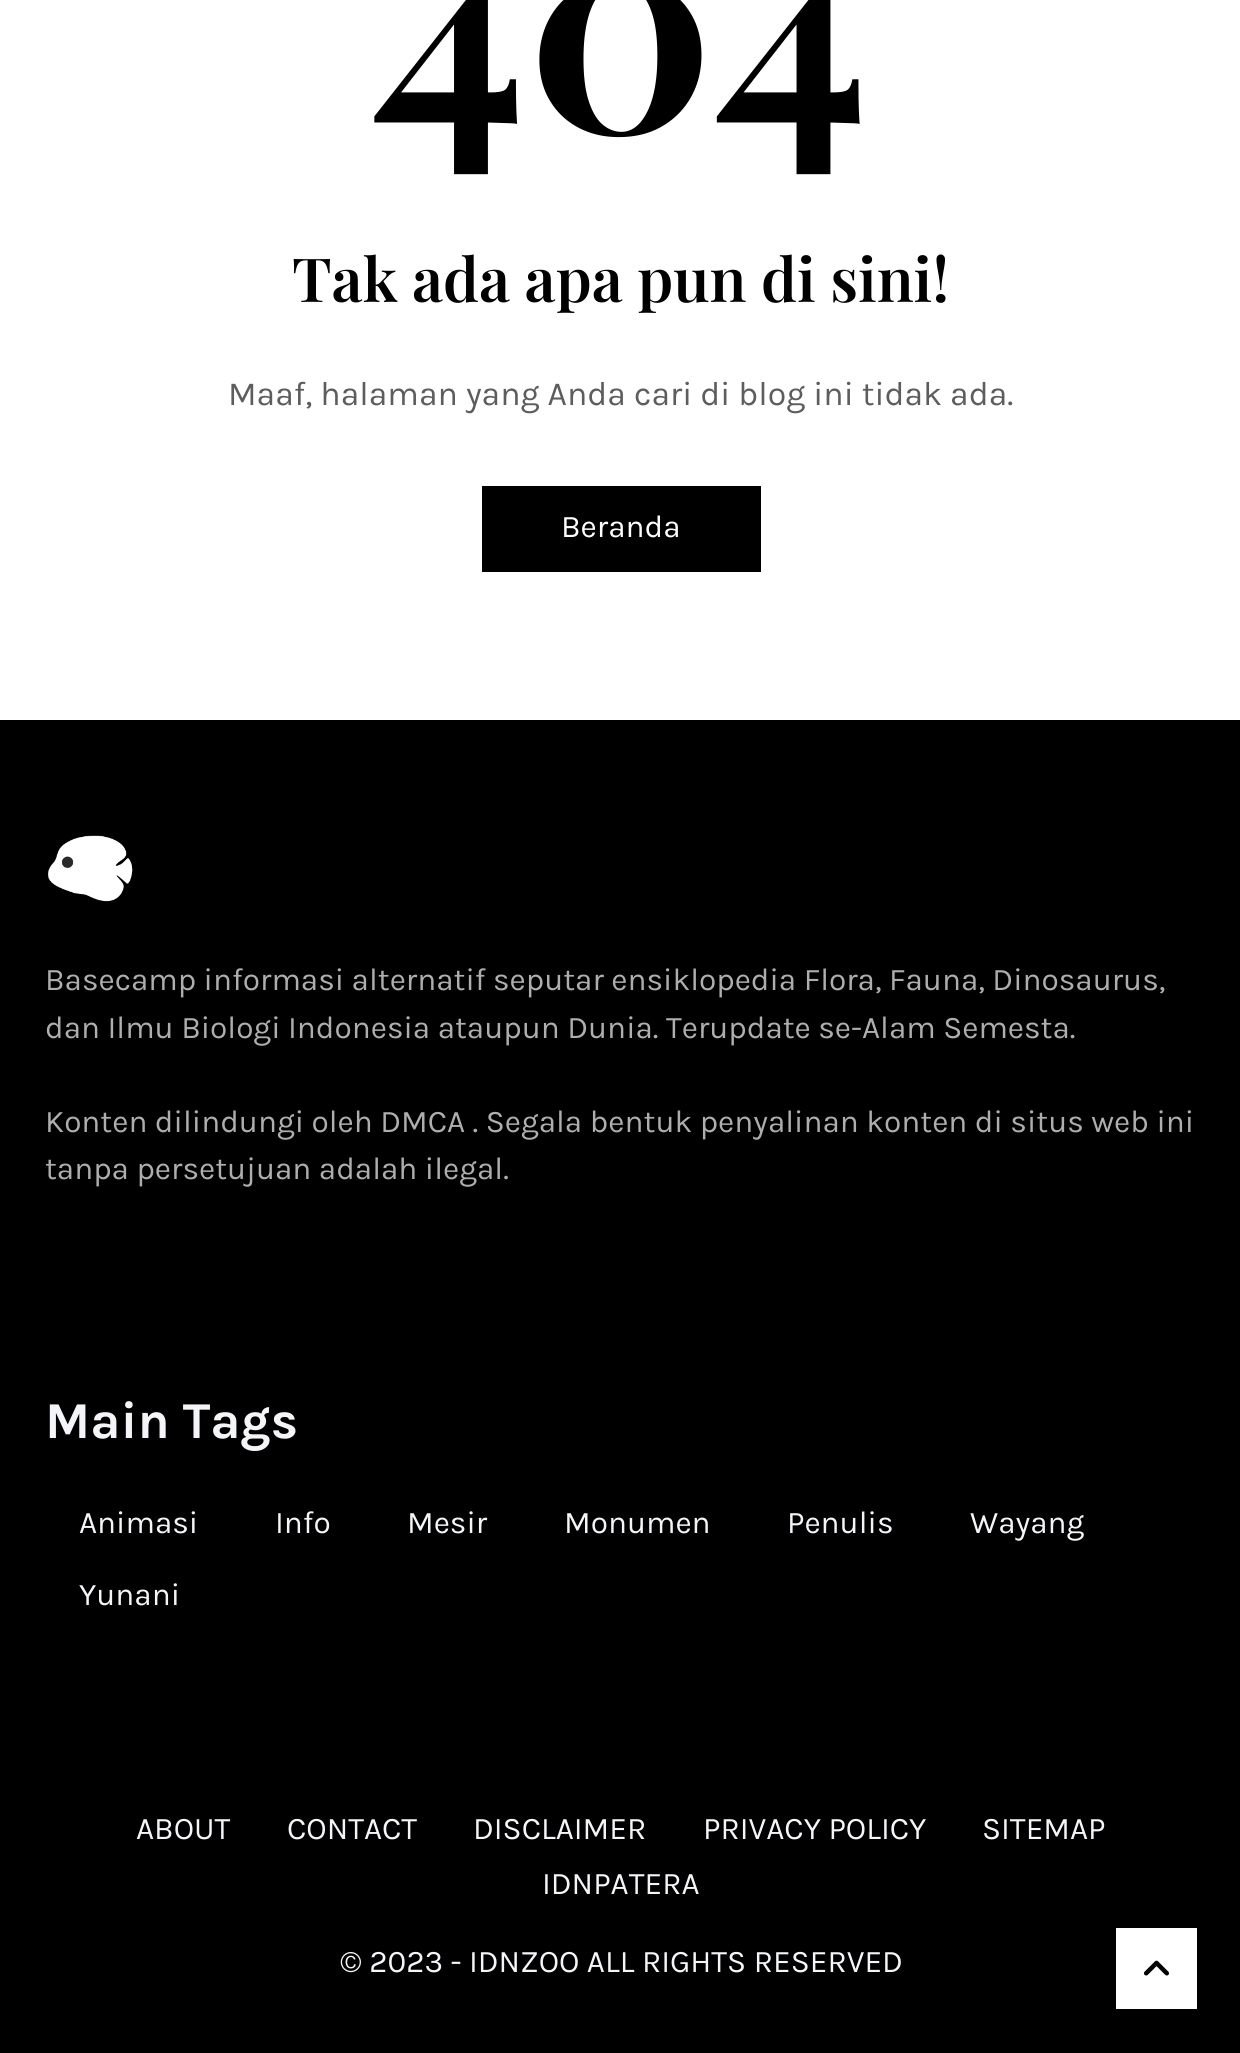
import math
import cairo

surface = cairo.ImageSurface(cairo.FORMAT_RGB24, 1240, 2053)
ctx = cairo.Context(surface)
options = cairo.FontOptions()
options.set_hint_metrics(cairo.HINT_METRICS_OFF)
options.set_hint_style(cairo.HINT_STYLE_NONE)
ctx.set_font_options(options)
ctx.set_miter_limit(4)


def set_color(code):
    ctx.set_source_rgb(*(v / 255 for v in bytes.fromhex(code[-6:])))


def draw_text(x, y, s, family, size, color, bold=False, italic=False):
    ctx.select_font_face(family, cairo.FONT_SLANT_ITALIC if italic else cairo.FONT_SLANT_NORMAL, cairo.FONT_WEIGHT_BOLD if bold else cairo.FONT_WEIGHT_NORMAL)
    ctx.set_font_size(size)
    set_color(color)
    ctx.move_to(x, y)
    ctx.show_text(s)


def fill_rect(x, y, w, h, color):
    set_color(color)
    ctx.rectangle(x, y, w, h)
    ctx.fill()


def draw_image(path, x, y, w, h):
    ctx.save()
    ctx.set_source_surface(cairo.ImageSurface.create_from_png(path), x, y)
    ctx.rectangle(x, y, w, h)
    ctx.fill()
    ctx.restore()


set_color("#ffffff")
ctx.paint()
draw_text(372, 133, "404", "Playfair Display", 292, "#000000", bold=True)
draw_text(292, 302, "Tak ada apa pun di sini!", "Playfair Display SemiBold", 60.75, "#000000")
draw_text(228, 405, "Maaf, halaman yang Anda cari di blog ini tidak ada.", "Karla", 33.75, "#5d5d5d")
fill_rect(482, 486, 279, 86, "#000000")
draw_text(561, 537, "Beranda", "Karla", 31.5, "#ffffff")
fill_rect(0, 720, 1240, 1333, "#000000")
draw_image("assets/img1.png", 48, 835, 85, 67)
draw_text(45, 990, "Basecamp informasi alternatif seputar ensiklopedia Flora, Fauna, Dinosaurus,", "Karla", 31.5, "#aeaeae")
draw_text(45, 1038, "dan Ilmu Biologi Indonesia ataupun Dunia. Terupdate se-Alam Semesta.", "Karla", 31.5, "#aeaeae")
draw_text(45, 1132, "Konten dilindungi oleh DMCA . Segala bentuk penyalinan konten di situs web ini", "Karla", 31.5, "#aeaeae")
draw_text(45, 1179, "tanpa persetujuan adalah ilegal.", "Karla", 31.5, "#aeaeae")
draw_text(45, 1438, "Main Tags", "Karla", 51.75, "#f4f5f8", bold=True)
draw_text(79, 1533, "Animasi", "Karla", 31.5, "#f4f5f8")
draw_text(275, 1533, "Info", "Karla", 31.5, "#f4f5f8")
draw_text(407, 1533, "Mesir", "Karla", 31.5, "#f4f5f8")
draw_text(564, 1533, "Monumen", "Karla", 31.5, "#f4f5f8")
draw_text(787, 1533, "Penulis", "Karla", 31.5, "#f4f5f8")
draw_text(970, 1533, "Wayang", "Karla", 31.5, "#f4f5f8")
draw_text(79, 1605, "Yunani", "Karla", 31.5, "#f4f5f8")
draw_text(136, 1839, "ABOUT", "Karla", 31.5, "#f4f5f8")
draw_text(287, 1839, "CONTACT", "Karla", 31.5, "#f4f5f8")
draw_text(473, 1839, "DISCLAIMER", "Karla", 31.5, "#f4f5f8")
draw_text(703, 1839, "PRIVACY POLICY", "Karla", 31.5, "#f4f5f8")
draw_text(982, 1839, "SITEMAP", "Karla", 31.5, "#f4f5f8")
draw_text(542, 1894, "IDNPATERA", "Karla", 31.5, "#f4f5f8")
draw_text(340, 1972, "© 2023 - IDNZOO ALL RIGHTS RESERVED", "Karla", 31.5, "#f4f5f8")
fill_rect(1116, 1928, 81, 81, "#ffffff")
draw_image("assets/img2.png", 1144, 1960, 25, 16)
surface.write_to_png("output.png")
